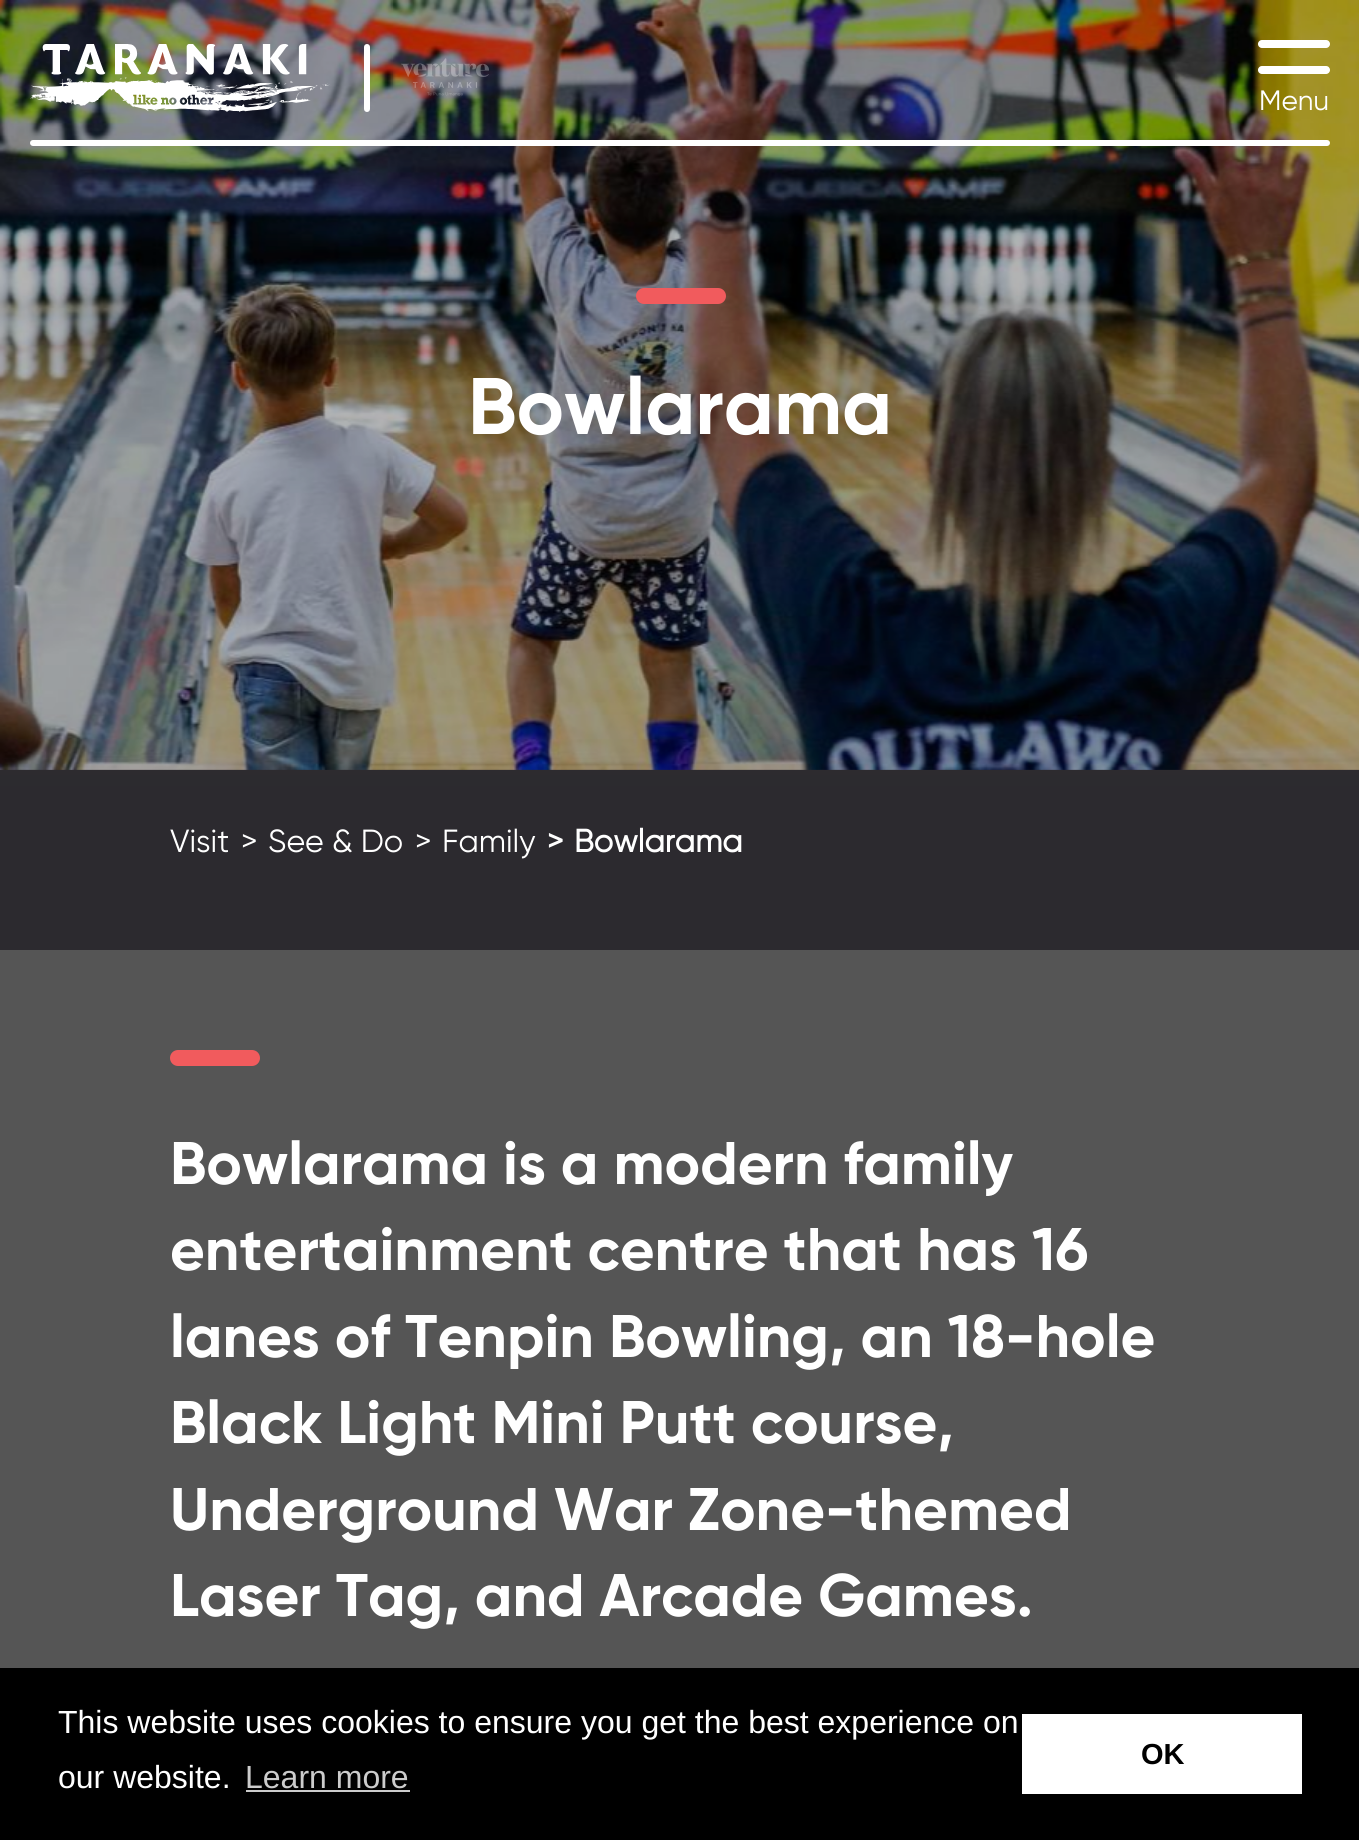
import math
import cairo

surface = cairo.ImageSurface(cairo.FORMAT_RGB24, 1359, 1840)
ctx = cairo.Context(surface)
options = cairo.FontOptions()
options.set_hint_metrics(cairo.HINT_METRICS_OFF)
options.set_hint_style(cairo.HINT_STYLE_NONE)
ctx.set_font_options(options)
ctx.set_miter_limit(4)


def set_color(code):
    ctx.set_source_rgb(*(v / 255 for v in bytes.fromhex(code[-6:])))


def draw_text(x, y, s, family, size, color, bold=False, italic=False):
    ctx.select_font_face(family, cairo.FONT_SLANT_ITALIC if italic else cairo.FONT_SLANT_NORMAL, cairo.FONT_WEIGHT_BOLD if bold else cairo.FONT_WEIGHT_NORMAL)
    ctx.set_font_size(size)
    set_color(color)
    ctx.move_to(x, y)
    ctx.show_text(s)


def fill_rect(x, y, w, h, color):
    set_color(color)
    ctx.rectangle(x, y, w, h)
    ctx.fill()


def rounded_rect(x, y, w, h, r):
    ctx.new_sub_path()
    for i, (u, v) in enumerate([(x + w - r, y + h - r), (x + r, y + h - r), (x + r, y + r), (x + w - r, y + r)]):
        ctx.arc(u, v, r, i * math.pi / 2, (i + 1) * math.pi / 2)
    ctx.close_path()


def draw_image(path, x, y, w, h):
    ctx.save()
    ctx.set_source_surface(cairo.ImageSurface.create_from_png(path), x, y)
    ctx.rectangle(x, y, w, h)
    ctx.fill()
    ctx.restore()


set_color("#ffffff")
ctx.paint()
gradient = cairo.LinearGradient(680, 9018, 680, 0)
gradient.add_color_stop_rgba(0, 0.031, 0.027, 0.039, 1)
gradient.add_color_stop_rgba(1, 0.188, 0.18, 0.2, 1)
ctx.set_source(gradient)
ctx.rectangle(0, 769, 1359, 181)
ctx.fill()
draw_image("assets/img3.png", 0, 0, 1359, 770)
draw_image("assets/img1.png", 30, 44, 300, 68)
set_color("#ffffff")
rounded_rect(364, 44, 6, 68, 3)
ctx.fill()
draw_image("assets/img2.png", 401, 58, 88, 38)
rounded_rect(1258, 40, 72, 8, 4)
ctx.fill()
rounded_rect(1258, 66, 72, 8, 4)
ctx.fill()
draw_text(1259, 110, "Menu", "Gilroy", 28, "#ffffff")
rounded_rect(30, 140, 1300, 6, 3)
ctx.fill()
set_color("#f15b5d")
rounded_rect(636, 288, 90, 16, 8)
ctx.fill()
draw_text(468, 434, "Bowlarama", "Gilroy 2", 80, "#ffffff", bold=True)
draw_text(170, 852, "Visit", "Gilroy", 32, "#ffffff")
draw_text(241, 852, ">", "Gilroy", 32, "#ffffff")
draw_text(268, 852, "See & Do", "Gilroy", 32, "#ffffff")
draw_text(415, 852, ">", "Gilroy", 32, "#ffffff")
draw_text(442, 852, "Family", "Gilroy", 32, "#ffffff")
draw_text(547, 852, ">", "Gilroy", 32, "#ffffff", bold=True)
draw_text(574, 852, "Bowlarama", "Gilroy", 32, "#ffffff", bold=True)
fill_rect(0, 950, 1359, 718, "#555555")
set_color("#f15b5d")
rounded_rect(170, 1050, 90, 16, 8)
ctx.fill()
draw_text(170, 1184, "Bowlarama is a modern family", "Gilroy 2", 60, "#ffffff", bold=True)
draw_text(170, 1270, "entertainment centre that has 16", "Gilroy 2", 60, "#ffffff", bold=True)
draw_text(170, 1357, "lanes of Tenpin Bowling, an 18-hole", "Gilroy 2", 60, "#ffffff", bold=True)
draw_text(170, 1443, "Black Light Mini Putt course,", "Gilroy 2", 60, "#ffffff", bold=True)
draw_text(170, 1530, "Underground War Zone-themed", "Gilroy 2", 60, "#ffffff", bold=True)
draw_text(170, 1616, "Laser Tag, and Arcade Games.", "Gilroy 2", 60, "#ffffff", bold=True)
fill_rect(0, 1668, 1359, 172, "#000000")
draw_text(58, 1733, "This website uses cookies to ensure you get the best experience on", "Liberation Sans", 32, "#ffffff")
draw_text(58, 1788, "our website.", "Liberation Sans", 32, "#ffffff")
draw_text(245, 1788, "Learn more", "Liberation Sans", 32, "#cccccc")
fill_rect(246, 1790, 164, 2, "#cccccc")
fill_rect(1022, 1714, 280, 80, "#ffffff")
draw_text(1141, 1764, "OK", "Liberation Sans", 29, "#000000", bold=True)
surface.write_to_png("output.png")
